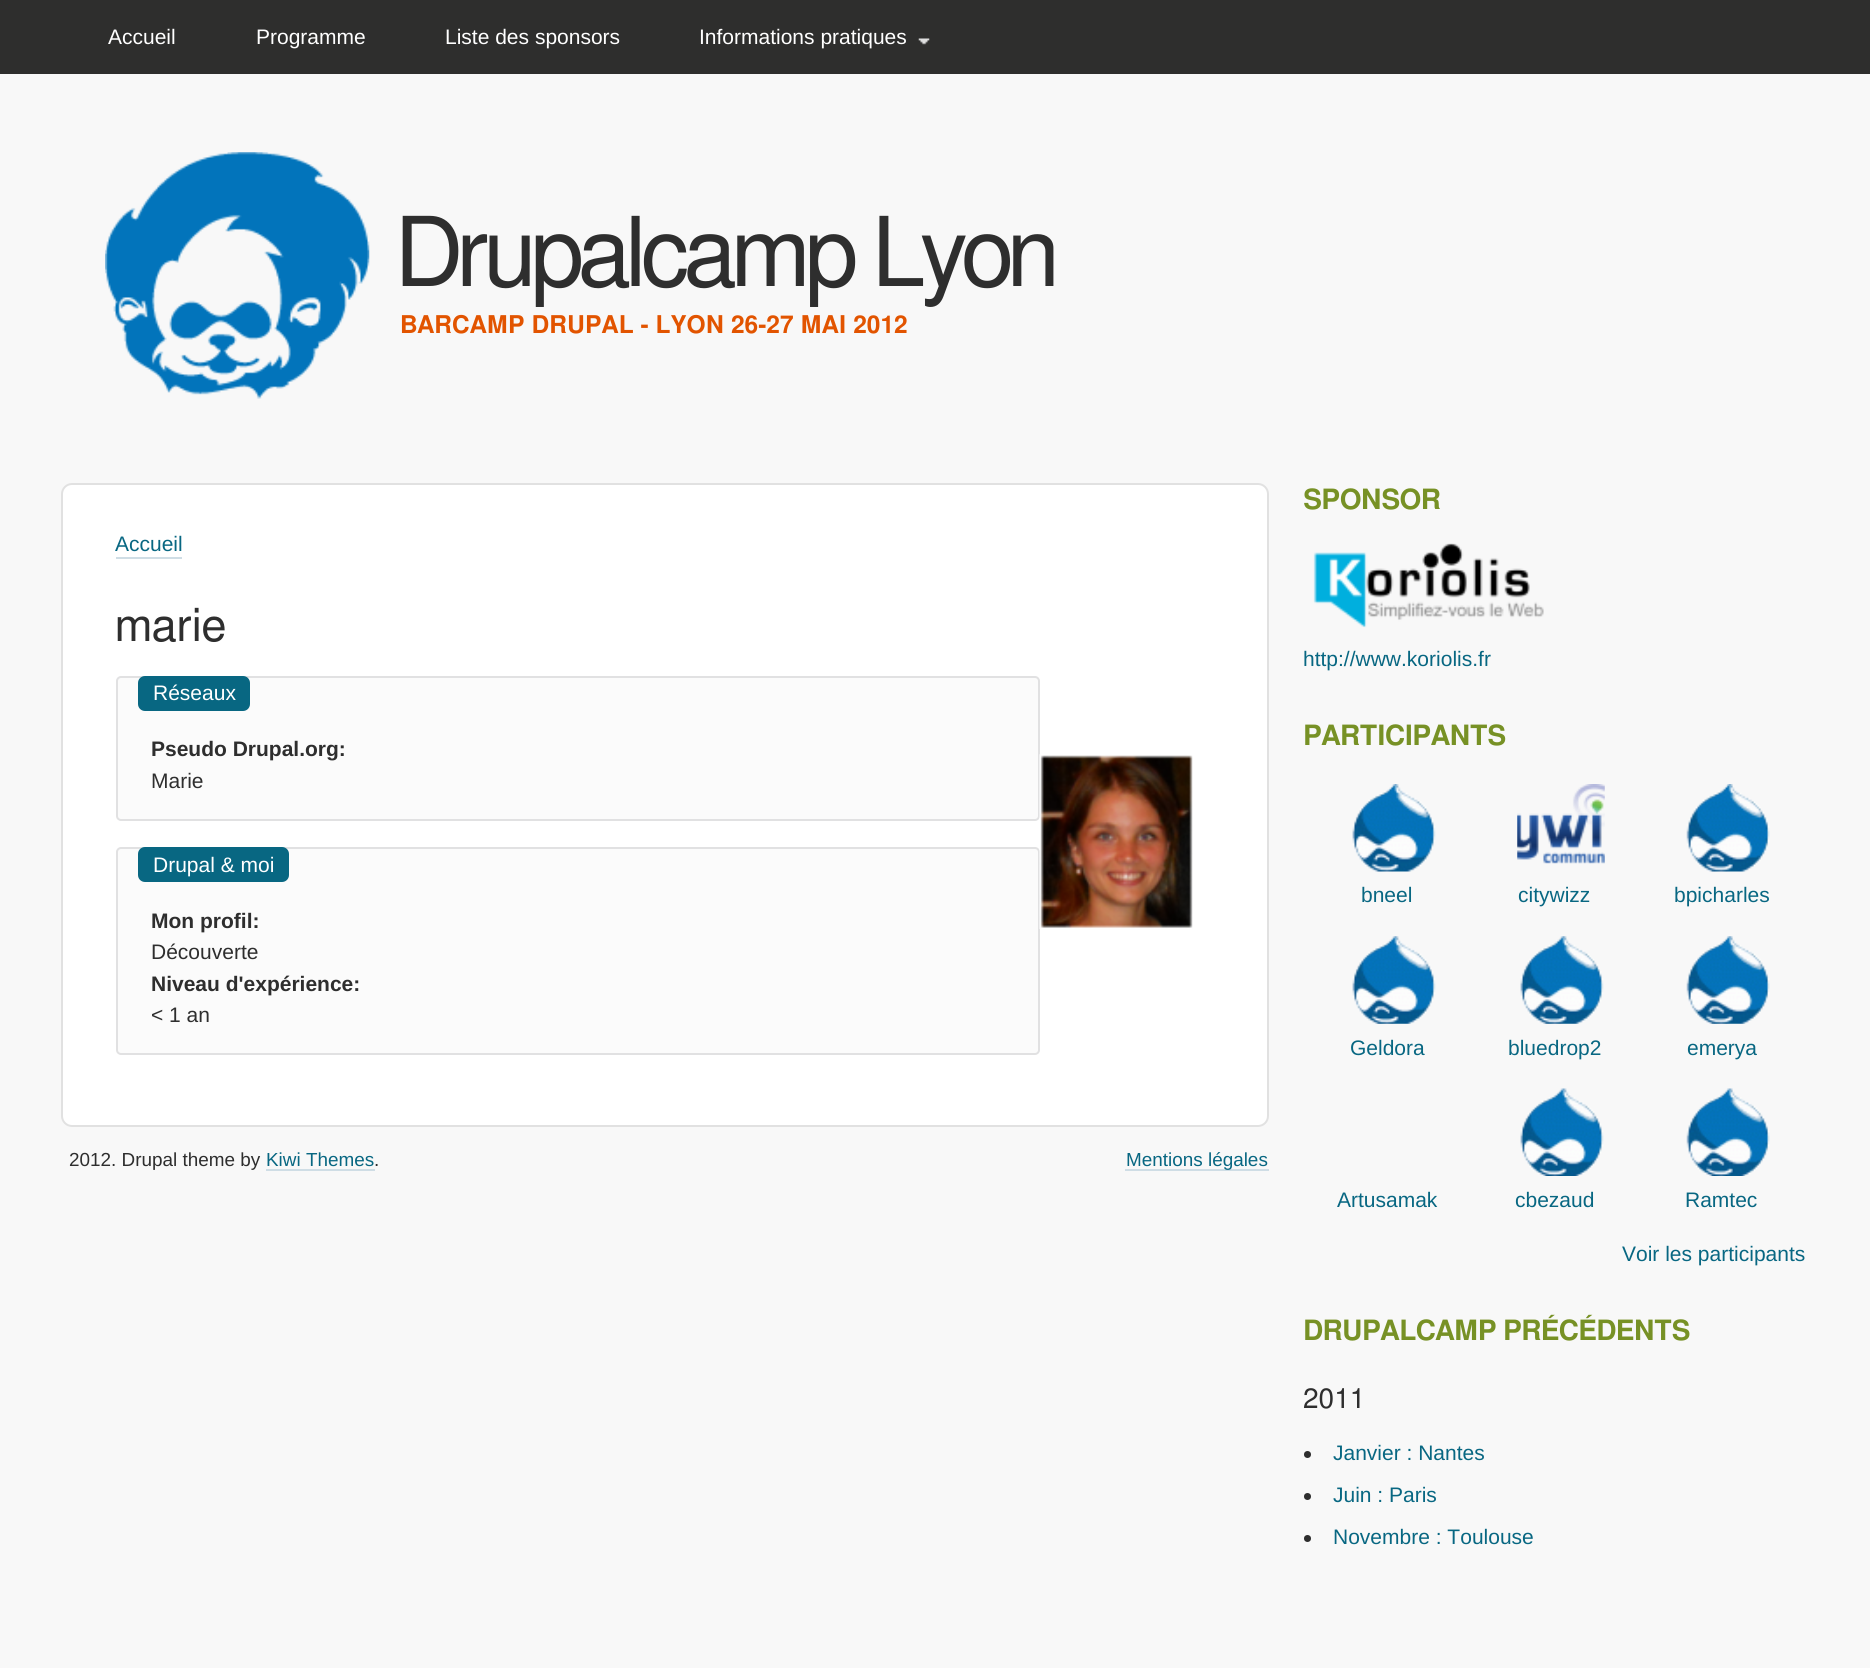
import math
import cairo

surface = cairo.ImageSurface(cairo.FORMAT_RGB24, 1870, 1668)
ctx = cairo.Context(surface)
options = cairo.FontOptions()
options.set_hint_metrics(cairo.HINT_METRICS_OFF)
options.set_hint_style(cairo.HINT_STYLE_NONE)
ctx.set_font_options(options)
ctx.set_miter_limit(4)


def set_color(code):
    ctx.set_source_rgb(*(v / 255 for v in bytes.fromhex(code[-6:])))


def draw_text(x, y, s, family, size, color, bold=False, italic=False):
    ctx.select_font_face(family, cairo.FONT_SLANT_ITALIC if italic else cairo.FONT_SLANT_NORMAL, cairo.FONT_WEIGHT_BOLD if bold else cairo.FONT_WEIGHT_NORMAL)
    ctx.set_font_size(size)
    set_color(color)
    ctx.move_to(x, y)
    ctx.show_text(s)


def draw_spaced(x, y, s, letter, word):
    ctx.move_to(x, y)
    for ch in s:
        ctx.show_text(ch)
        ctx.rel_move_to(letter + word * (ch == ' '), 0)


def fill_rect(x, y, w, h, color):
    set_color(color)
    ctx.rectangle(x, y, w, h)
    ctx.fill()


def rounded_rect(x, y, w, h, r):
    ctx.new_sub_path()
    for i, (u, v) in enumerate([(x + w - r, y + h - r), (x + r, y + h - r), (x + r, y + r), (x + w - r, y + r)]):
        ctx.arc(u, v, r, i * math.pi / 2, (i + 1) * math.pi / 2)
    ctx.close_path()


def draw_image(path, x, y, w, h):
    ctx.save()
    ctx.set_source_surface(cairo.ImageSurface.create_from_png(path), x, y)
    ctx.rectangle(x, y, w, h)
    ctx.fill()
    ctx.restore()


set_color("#f8f8f8")
ctx.paint()
fill_rect(0, 0, 1870, 74, "#2e2e2d")
draw_text(108, 44, "Accueil", "Liberation Sans", 21, "#ffffff")
draw_text(256, 44, "Programme", "Liberation Sans", 21, "#ffffff")
draw_text(445, 44, "Liste des sponsors", "Liberation Sans", 21, "#ffffff")
draw_image("assets/img1.png", 918, 38, 12, 7)
draw_text(699, 44, "Informations pratiques", "Liberation Sans", 21, "#ffffff")
draw_image("assets/img2.png", 105, 152, 265, 247)
ctx.select_font_face("FreeSans")
ctx.set_font_size(96.25)
set_color("#2e2e2e")
draw_spaced(395, 286, "Drupalcamp Lyon", -5.25, 0)
draw_text(400, 333, "BARCAMP DRUPAL - LYON 26-27 MAI 2012", "FreeSans SemiBold", 24.5, "#e25400")
set_color("#ffffff")
rounded_rect(62, 484, 1206, 642, 10)
ctx.fill_preserve()
set_color("#e1e1e1")
ctx.stroke()
draw_text(115, 551, "Accueil", "Liberation Sans", 21, "#086782")
fill_rect(116, 557, 66, 2, "#cfdde5")
draw_text(115, 641, "marie", "FreeSans", 45.5, "#2e2e2e")
set_color("#fbfbfb")
rounded_rect(117, 677, 922, 143, 4)
ctx.fill_preserve()
set_color("#e1e1e2")
ctx.stroke()
set_color("#086782")
rounded_rect(138, 676, 112, 35, 7)
ctx.fill()
draw_text(153, 700, "Réseaux", "Liberation Sans", 21, "#ffffff")
draw_text(151, 756, "Pseudo Drupal.org:", "Liberation Sans", 21, "#2e2e2e", bold=True)
draw_text(151, 788, "Marie", "Liberation Sans", 21, "#2e2e2e")
set_color("#fbfbfb")
rounded_rect(117, 848, 922, 206, 4)
ctx.fill_preserve()
set_color("#e1e1e2")
ctx.stroke()
set_color("#086782")
rounded_rect(138, 847, 151, 35, 7)
ctx.fill()
draw_text(153, 872, "Drupal & moi", "Liberation Sans", 21, "#ffffff")
draw_text(151, 928, "Mon profil:", "Liberation Sans", 21, "#2e2e2e", bold=True)
draw_text(151, 959, "Découverte", "Liberation Sans", 21, "#2e2e2e")
draw_text(151, 991, "Niveau d'expérience:", "Liberation Sans", 21, "#2e2e2e", bold=True)
draw_text(151, 1022, "< 1 an", "Liberation Sans", 21, "#2e2e2e")
draw_image("assets/img3.png", 1039, 754, 154, 175)
draw_text(69, 1166, "2012. Drupal theme by", "Liberation Sans", 18.9, "#2e2e2e")
draw_text(266, 1166, "Kiwi Themes", "Liberation Sans", 18.9, "#086782")
fill_rect(266, 1169, 109, 2, "#cfdde5")
draw_text(374, 1166, ".", "Liberation Sans", 18.9, "#2e2e2e")
fill_rect(1125, 1169, 144, 2, "#cfdde5")
draw_text(1126, 1166, "Mentions légales", "Liberation Sans", 18.9, "#086782")
ctx.select_font_face("FreeSans SemiBold")
ctx.set_font_size(28)
set_color("#779125")
draw_spaced(1303, 509, "SPONSOR", -0.7, 0)
draw_image("assets/img4.png", 1313, 543, 231, 85)
draw_text(1303, 666, "http://www.koriolis.fr", "Liberation Sans", 21, "#086782")
ctx.select_font_face("FreeSans SemiBold")
ctx.set_font_size(28)
set_color("#779125")
draw_spaced(1303, 745, "PARTICIPANTS", -0.7, 0)
draw_image("assets/img5.png", 1352, 784, 84, 88)
draw_text(1361, 902, "bneel", "Liberation Sans", 21, "#086782")
draw_image("assets/img6.png", 1517, 784, 88, 80)
draw_text(1518, 902, "citywizz", "Liberation Sans", 21, "#086782")
draw_image("assets/img7.png", 1686, 784, 84, 88)
draw_text(1674, 902, "bpicharles", "Liberation Sans", 21, "#086782")
draw_image("assets/img8.png", 1352, 936, 84, 88)
draw_text(1350, 1055, "Geldora", "Liberation Sans", 21, "#086782")
draw_image("assets/img9.png", 1520, 936, 84, 88)
draw_text(1508, 1055, "bluedrop2", "Liberation Sans", 21, "#086782")
draw_image("assets/img10.png", 1686, 936, 84, 88)
draw_text(1687, 1055, "emerya", "Liberation Sans", 21, "#086782")
draw_text(1337, 1207, "Artusamak", "Liberation Sans", 21, "#086782")
draw_image("assets/img11.png", 1520, 1088, 84, 88)
draw_text(1515, 1207, "cbezaud", "Liberation Sans", 21, "#086782")
draw_image("assets/img12.png", 1686, 1088, 84, 88)
draw_text(1685, 1207, "Ramtec", "Liberation Sans", 21, "#086782")
draw_text(1622, 1261, "Voir les participants", "Liberation Sans", 21, "#086782")
ctx.select_font_face("FreeSans SemiBold")
ctx.set_font_size(28)
set_color("#779125")
draw_spaced(1303, 1340, "DRUPALCAMP PRÉCÉDENTS", -0.7, 0)
draw_text(1303, 1408, "2011", "FreeSans", 28, "#2e2e2e")
ctx.new_path()
ctx.arc(1307.5, 1454.5, 3.5, 0, 2 * math.pi)
ctx.fill()
draw_text(1333, 1460, "Janvier : Nantes", "Liberation Sans", 21, "#086782")
set_color("#2e2e2e")
ctx.new_path()
ctx.arc(1307.5, 1496.5, 3.5, 0, 2 * math.pi)
ctx.fill()
draw_text(1333, 1502, "Juin : Paris", "Liberation Sans", 21, "#086782")
set_color("#2e2e2e")
ctx.new_path()
ctx.arc(1307.5, 1538.5, 3.5, 0, 2 * math.pi)
ctx.fill()
draw_text(1333, 1544, "Novembre : Toulouse", "Liberation Sans", 21, "#086782")
surface.write_to_png("output.png")
